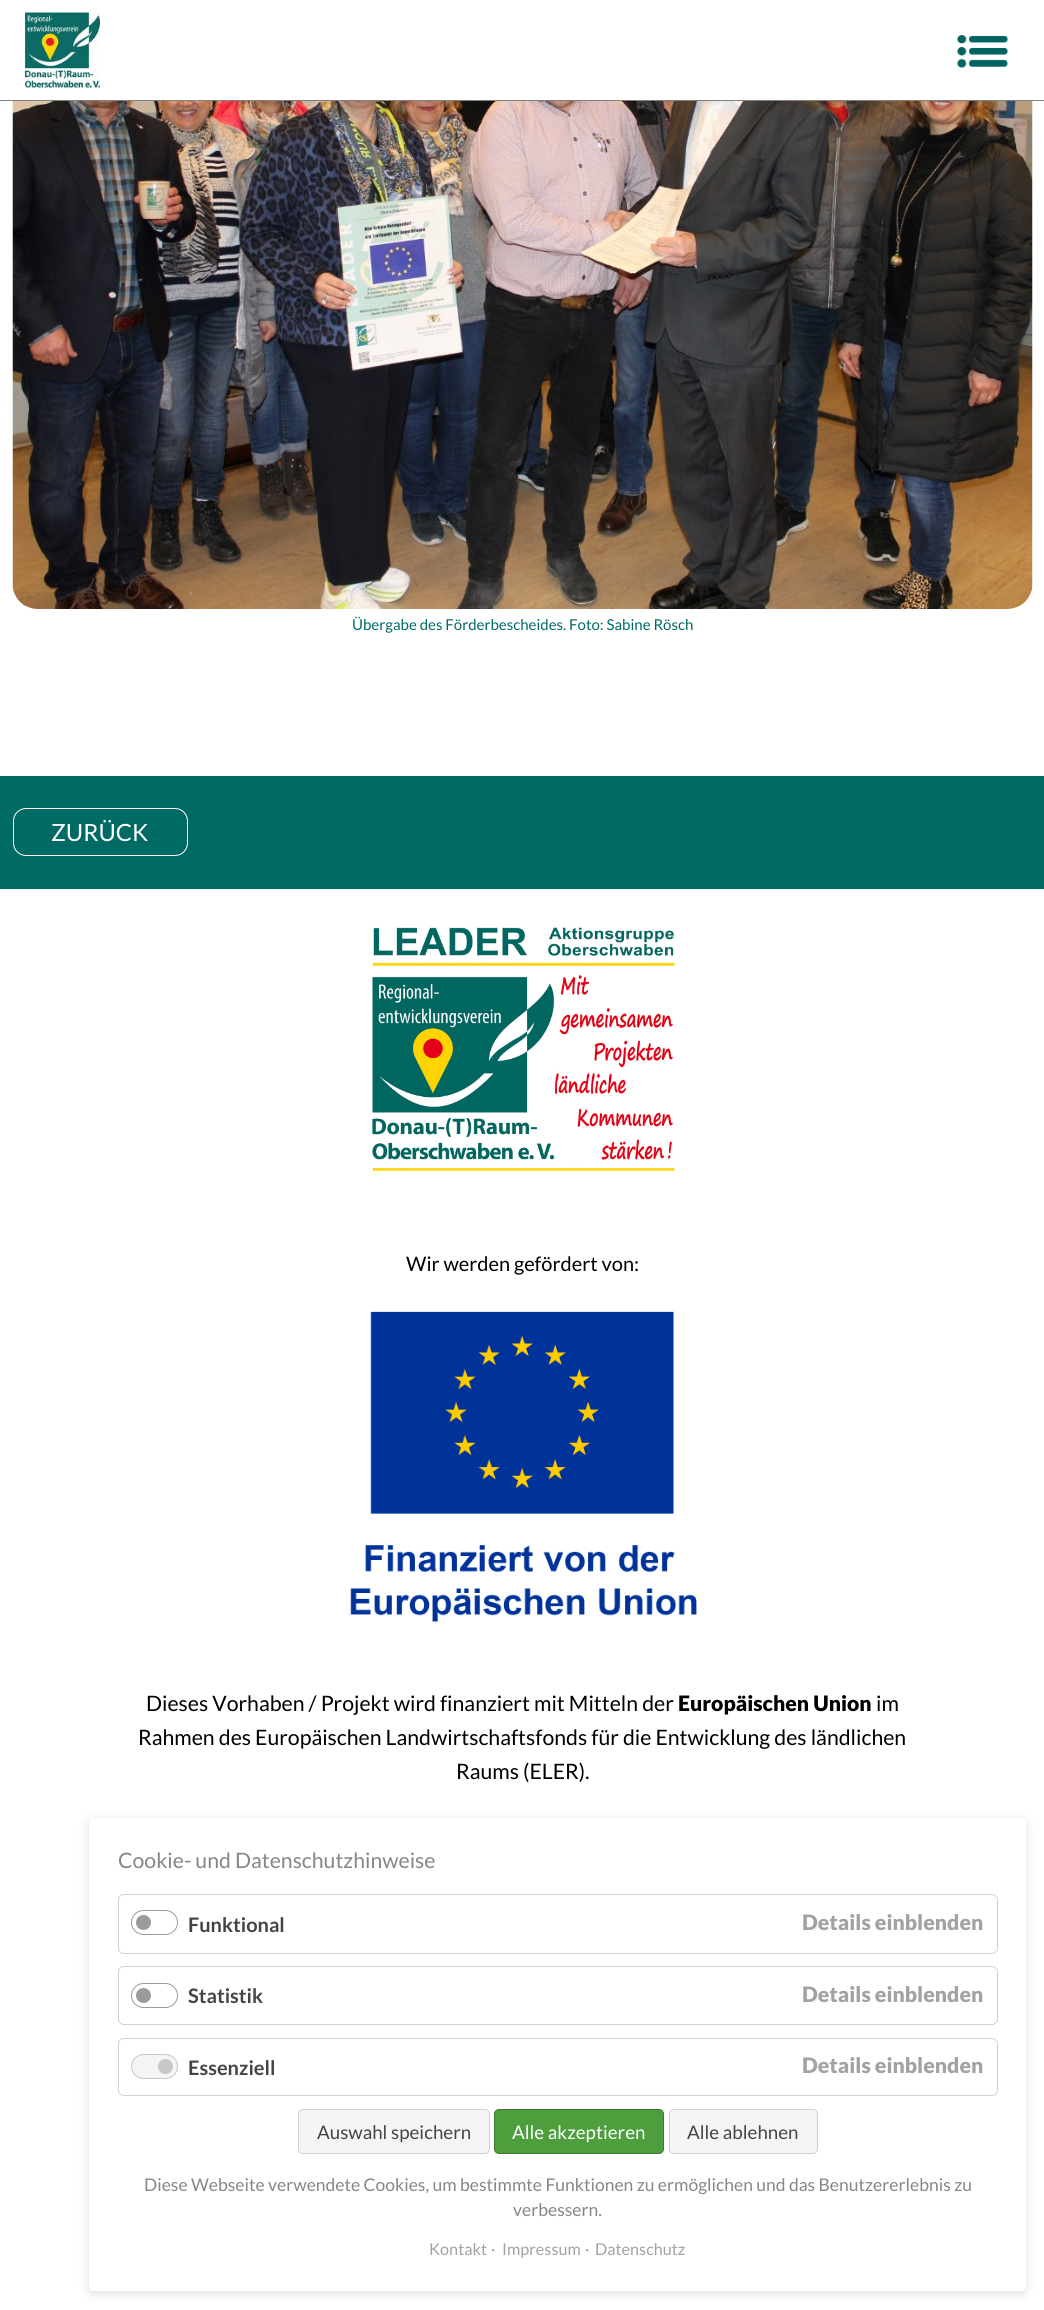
import math
import cairo

surface = cairo.ImageSurface(cairo.FORMAT_RGB24, 1044, 2310)
ctx = cairo.Context(surface)
options = cairo.FontOptions()
options.set_hint_metrics(cairo.HINT_METRICS_OFF)
options.set_hint_style(cairo.HINT_STYLE_NONE)
ctx.set_font_options(options)
ctx.set_miter_limit(4)


def set_color(code):
    ctx.set_source_rgb(*(v / 255 for v in bytes.fromhex(code[-6:])))


def draw_text(x, y, s, family, size, color, bold=False, italic=False):
    ctx.select_font_face(family, cairo.FONT_SLANT_ITALIC if italic else cairo.FONT_SLANT_NORMAL, cairo.FONT_WEIGHT_BOLD if bold else cairo.FONT_WEIGHT_NORMAL)
    ctx.set_font_size(size)
    set_color(color)
    ctx.move_to(x, y)
    ctx.show_text(s)


def fill_rect(x, y, w, h, color):
    set_color(color)
    ctx.rectangle(x, y, w, h)
    ctx.fill()


def rounded_rect(x, y, w, h, r):
    ctx.new_sub_path()
    for i, (u, v) in enumerate([(x + w - r, y + h - r), (x + r, y + h - r), (x + r, y + r), (x + w - r, y + r)]):
        ctx.arc(u, v, r, i * math.pi / 2, (i + 1) * math.pi / 2)
    ctx.close_path()


def draw_shadow(x, y, w, h, r, blur, alpha):
    ctx.push_group_with_content(cairo.CONTENT_ALPHA)
    ctx.set_operator(cairo.OPERATOR_SOURCE)
    for i in range(15, -16, -2):
        e = blur * i / 6
        if min(w, h) + 2 * e > 0:
            ctx.set_source_rgba(0, 0, 0, alpha * math.erfc((i - 1) / 8.5) / 2)
            rounded_rect(x - e, y - e, w + 2 * e, h + 2 * e, max(0, min(r + e + blur * .6, min(w, h) / 2 + e)))
            ctx.fill()
    ctx.mask(ctx.pop_group())


def draw_image(path, x, y, w, h):
    ctx.save()
    ctx.set_source_surface(cairo.ImageSurface.create_from_png(path), x, y)
    ctx.rectangle(x, y, w, h)
    ctx.fill()
    ctx.restore()


set_color("#ffffff")
ctx.paint()
fill_rect(0, 100, 1044, 1, "#808080")
draw_image("assets/img1.png", 25, 12, 75, 76)
draw_image("assets/img2.png", 957, 35, 51, 33)
draw_image("assets/img3.png", 12, 101, 1021, 508)
draw_text(352, 630, "Übergabe des Förderbescheides. Foto: Sabine Rösch", "Lato", 15, "#006b65")
fill_rect(0, 776, 1044, 113, "#006b65")
rounded_rect(13.5, 808.5, 174, 47, 12.5)
set_color("#ffffff")
ctx.set_line_width(1)
ctx.stroke()
draw_text(51, 841, "ZURÜCK", "Lato", 23.75, "#ffffff")
draw_image("assets/img4.png", 372, 927, 303, 244)
draw_text(406, 1271, "Wir werden gefördert von:", "Lato", 20, "#000000")
draw_image("assets/img5.png", 350, 1311, 347, 311)
draw_text(146, 1711, "Dieses Vorhaben / Projekt wird finanziert mit Mitteln der", "Lato", 21.25, "#000000")
draw_text(678, 1711, "Europäischen Union", "Lato Black", 21.25, "#000000")
draw_text(876, 1711, "im", "Lato", 21.25, "#000000")
draw_text(138, 1745, "Rahmen des Europäischen Landwirtschaftsfonds für die Entwicklung des ländlichen", "Lato", 21.25, "#000000")
draw_text(456, 1779, "Raums (ELER).", "Lato", 21.25, "#000000")
set_color("#636363")
draw_shadow(89, 1820, 937, 474, 4, 5, 0.2)
set_color("#ffffff")
rounded_rect(89, 1818, 937, 473, 4)
ctx.fill()
draw_text(118, 1868, "Cookie- und Datenschutzhinweise", "Lato", 21.25, "#868686")
rounded_rect(118.5, 1894.5, 879, 59, 5.5)
set_color("#d0d0d0")
ctx.stroke()
rounded_rect(131.5, 1910.5, 46, 24, 12)
set_color("#9c9b99")
ctx.stroke()
ctx.arc(143.5, 1922.5, 7.5, 0, 2 * math.pi)
ctx.fill()
draw_text(188, 1932, "Funktional", "Lato", 20, "#444444", bold=True)
draw_text(802, 1930, "Details einblenden", "Lato Black", 21.25, "#a2a2a2")
rounded_rect(118.5, 1966.5, 879, 58, 5.5)
set_color("#d0d0d0")
ctx.stroke()
rounded_rect(131.5, 1983.5, 46, 24, 12)
set_color("#9c9b99")
ctx.stroke()
ctx.arc(143.5, 1995.5, 7.5, 0, 2 * math.pi)
ctx.fill()
draw_text(188, 2003, "Statistik", "Lato", 20, "#444444", bold=True)
draw_text(802, 2002, "Details einblenden", "Lato Black", 21.25, "#a2a2a2")
rounded_rect(118.5, 2038.5, 879, 57, 5.5)
set_color("#d0d0d0")
ctx.stroke()
set_color("#f4f4f4")
rounded_rect(131.5, 2054.5, 46, 24, 12)
ctx.fill_preserve()
set_color("#c8c7c5")
ctx.stroke()
ctx.arc(165.5, 2066.5, 7.5, 0, 2 * math.pi)
ctx.fill()
draw_text(188, 2075, "Essenziell", "Lato", 20, "#444444", bold=True)
draw_text(802, 2073, "Details einblenden", "Lato Black", 21.25, "#a2a2a2")
set_color("#f5f5f5")
rounded_rect(298.5, 2109.5, 191, 44, 4.5)
ctx.fill_preserve()
set_color("#cfcfcf")
ctx.stroke()
draw_text(317, 2139, "Auswahl speichern", "Lato", 18.75, "#444444")
set_color("#4e9e3e")
rounded_rect(494.5, 2109.5, 169, 44, 4.5)
ctx.fill_preserve()
set_color("#3e7830")
ctx.stroke()
draw_text(512, 2139, "Alle akzeptieren", "Lato", 18.75, "#ffffff")
set_color("#f5f5f5")
rounded_rect(669.5, 2109.5, 148, 44, 4.5)
ctx.fill_preserve()
set_color("#cfcfcf")
ctx.stroke()
draw_text(687, 2139, "Alle ablehnen", "Lato", 18.75, "#444444")
draw_text(144, 2191, "Diese Webseite verwendete Cookies, um bestimmte Funktionen zu ermöglichen und das Benutzererlebnis zu", "Lato", 17.5, "#868686")
draw_text(513, 2216, "verbessern.", "Lato", 17.5, "#868686")
draw_text(429, 2255, "Kontakt", "Lato", 16.25, "#a2a2a2")
draw_text(491, 2255, "·", "Lato", 16.25, "#a2a2a2")
draw_text(502, 2255, "Impressum", "Lato", 16.25, "#a2a2a2")
draw_text(585, 2255, "·", "Lato", 16.25, "#a2a2a2")
draw_text(595, 2255, "Datenschutz", "Lato", 16.25, "#a2a2a2")
surface.write_to_png("output.png")
